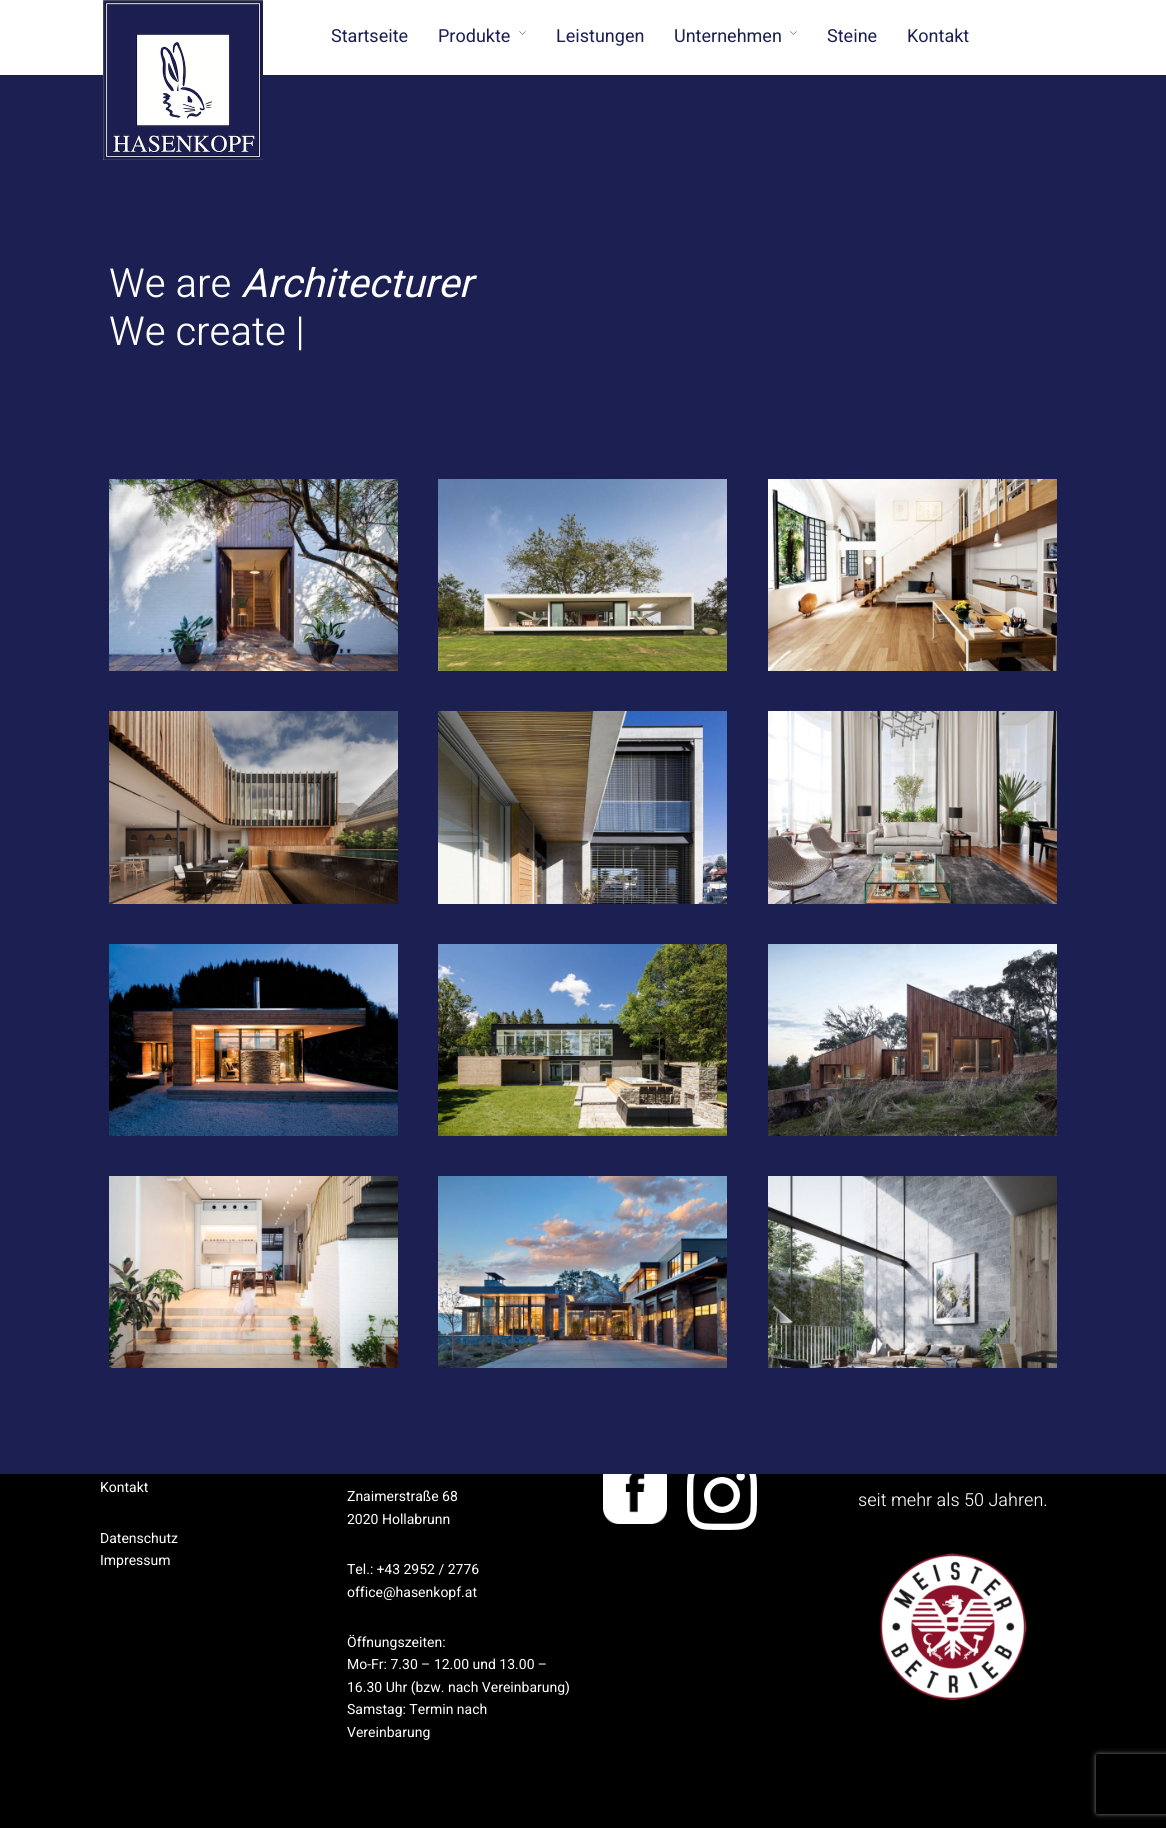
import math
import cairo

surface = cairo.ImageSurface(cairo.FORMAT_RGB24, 1166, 1828)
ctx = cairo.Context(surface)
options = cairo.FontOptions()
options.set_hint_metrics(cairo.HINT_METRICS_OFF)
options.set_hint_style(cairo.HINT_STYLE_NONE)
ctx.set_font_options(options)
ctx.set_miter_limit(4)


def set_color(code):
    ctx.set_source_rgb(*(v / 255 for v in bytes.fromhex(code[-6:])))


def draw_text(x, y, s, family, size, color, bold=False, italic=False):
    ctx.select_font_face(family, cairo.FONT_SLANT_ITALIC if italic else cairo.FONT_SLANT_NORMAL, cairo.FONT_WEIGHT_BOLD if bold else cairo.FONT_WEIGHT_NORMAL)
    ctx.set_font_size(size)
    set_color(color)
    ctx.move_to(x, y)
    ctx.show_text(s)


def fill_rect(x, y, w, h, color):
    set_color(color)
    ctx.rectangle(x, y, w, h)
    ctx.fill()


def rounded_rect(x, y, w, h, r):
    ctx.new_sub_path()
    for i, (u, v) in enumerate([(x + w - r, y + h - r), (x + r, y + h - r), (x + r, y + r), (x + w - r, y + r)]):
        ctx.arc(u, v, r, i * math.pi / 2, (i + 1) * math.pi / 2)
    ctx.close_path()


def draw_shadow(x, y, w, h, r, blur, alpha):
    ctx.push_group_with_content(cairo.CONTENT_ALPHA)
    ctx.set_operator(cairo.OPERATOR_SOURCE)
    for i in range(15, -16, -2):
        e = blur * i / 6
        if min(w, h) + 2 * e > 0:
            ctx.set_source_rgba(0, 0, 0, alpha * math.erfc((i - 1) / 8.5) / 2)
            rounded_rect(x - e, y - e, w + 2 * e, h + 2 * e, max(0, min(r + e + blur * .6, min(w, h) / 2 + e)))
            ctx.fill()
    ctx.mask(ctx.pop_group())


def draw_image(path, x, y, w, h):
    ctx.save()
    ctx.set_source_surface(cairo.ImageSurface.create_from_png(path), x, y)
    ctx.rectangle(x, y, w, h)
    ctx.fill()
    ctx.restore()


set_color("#000000")
ctx.paint()
fill_rect(0, 75, 1166, 1399, "#1c1f51")
fill_rect(0, 0, 1166, 75, "#ffffff")
draw_image("assets/img1.png", 103, 0, 160, 160)
draw_text(331, 42, "Startseite", "Heebo", 18, "#1c1f51")
draw_text(438, 42, "Produkte", "Heebo", 18, "#1c1f51")
draw_image("assets/img2.png", 519, 31, 7, 4)
draw_text(556, 42, "Leistungen", "Heebo", 18, "#1c1f51")
draw_text(674, 42, "Unternehmen", "Heebo", 18, "#1c1f51")
draw_image("assets/img2.png", 790, 31, 7, 4)
draw_text(827, 42, "Steine", "Heebo", 18, "#1c1f51")
draw_text(907, 42, "Kontakt", "Heebo", 18, "#1c1f51")
draw_text(109, 297, "We are", "Heebo Light", 40, "#ffffff")
draw_text(241, 297, "Architecturer", "Heebo", 40, "#ffffff", italic=True)
draw_text(109, 345, "We create |", "Heebo Light", 40, "#ffffff")
draw_image("assets/img3.png", 109, 479, 289, 192)
draw_image("assets/img4.png", 438, 479, 289, 192)
draw_image("assets/img5.png", 768, 479, 289, 192)
draw_image("assets/img6.png", 109, 711, 289, 193)
draw_image("assets/img7.png", 438, 711, 289, 193)
draw_image("assets/img8.png", 768, 711, 289, 193)
draw_image("assets/img9.png", 109, 944, 289, 192)
draw_image("assets/img10.png", 438, 944, 289, 192)
draw_image("assets/img11.png", 768, 944, 289, 192)
draw_image("assets/img12.png", 109, 1176, 289, 192)
draw_image("assets/img13.png", 438, 1176, 289, 192)
draw_image("assets/img14.png", 768, 1176, 289, 192)
draw_text(100, 1492, "Kontakt", "Heebo", 14, "#ffffff")
draw_text(100, 1543, "Datenschutz", "Heebo", 14, "#ffffff")
draw_text(100, 1565, "Impressum", "Heebo", 14, "#ffffff")
draw_text(347, 1501, "Znaimerstraße 68", "Heebo", 14, "#ffffff")
draw_text(347, 1524, "2020 Hollabrunn", "Heebo", 14, "#ffffff")
draw_text(347, 1574, "Tel.: +43 2952 / 2776", "Heebo", 14, "#ffffff")
draw_text(347, 1597, "office@hasenkopf.at", "Heebo", 14, "#ffffff")
draw_text(347, 1647, "Öffnungszeiten:", "Heebo", 14, "#ffffff")
draw_text(347, 1669, "Mo-Fr: 7.30 – 12.00 und 13.00 –", "Heebo", 14, "#ffffff")
draw_text(347, 1692, "16.30 Uhr (bzw. nach Vereinbarung)", "Heebo", 14, "#ffffff")
draw_text(347, 1714, "Samstag: Termin nach", "Heebo", 14, "#ffffff")
draw_text(347, 1737, "Vereinbarung", "Heebo", 14, "#ffffff")
draw_image("assets/img15.png", 603, 1474, 64, 50)
draw_image("assets/img16.png", 687, 1474, 70, 56)
draw_text(858, 1506, "seit mehr als 50 Jahren.", "Heebo Light", 18, "#f5f5f5")
draw_image("assets/img17.png", 880, 1553, 147, 148)
ctx.save()
ctx.set_fill_rule(cairo.FILL_RULE_EVEN_ODD)
ctx.new_path()
ctx.move_to(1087, 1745)
ctx.line_to(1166, 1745)
ctx.line_to(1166, 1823)
ctx.line_to(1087, 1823)
ctx.close_path()
ctx.move_to(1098, 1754)
ctx.line_to(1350, 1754)
ctx.curve_to(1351, 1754, 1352, 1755, 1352, 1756)
ctx.line_to(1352, 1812)
ctx.curve_to(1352, 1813, 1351, 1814, 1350, 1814)
ctx.line_to(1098, 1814)
ctx.curve_to(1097, 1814, 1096, 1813, 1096, 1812)
ctx.line_to(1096, 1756)
ctx.curve_to(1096, 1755, 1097, 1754, 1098, 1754)
ctx.close_path()
ctx.clip()
set_color("#808080")
draw_shadow(1096, 1754, 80, 60, 2, 2.5, 1)
ctx.restore()
surface.write_to_png("output.png")
